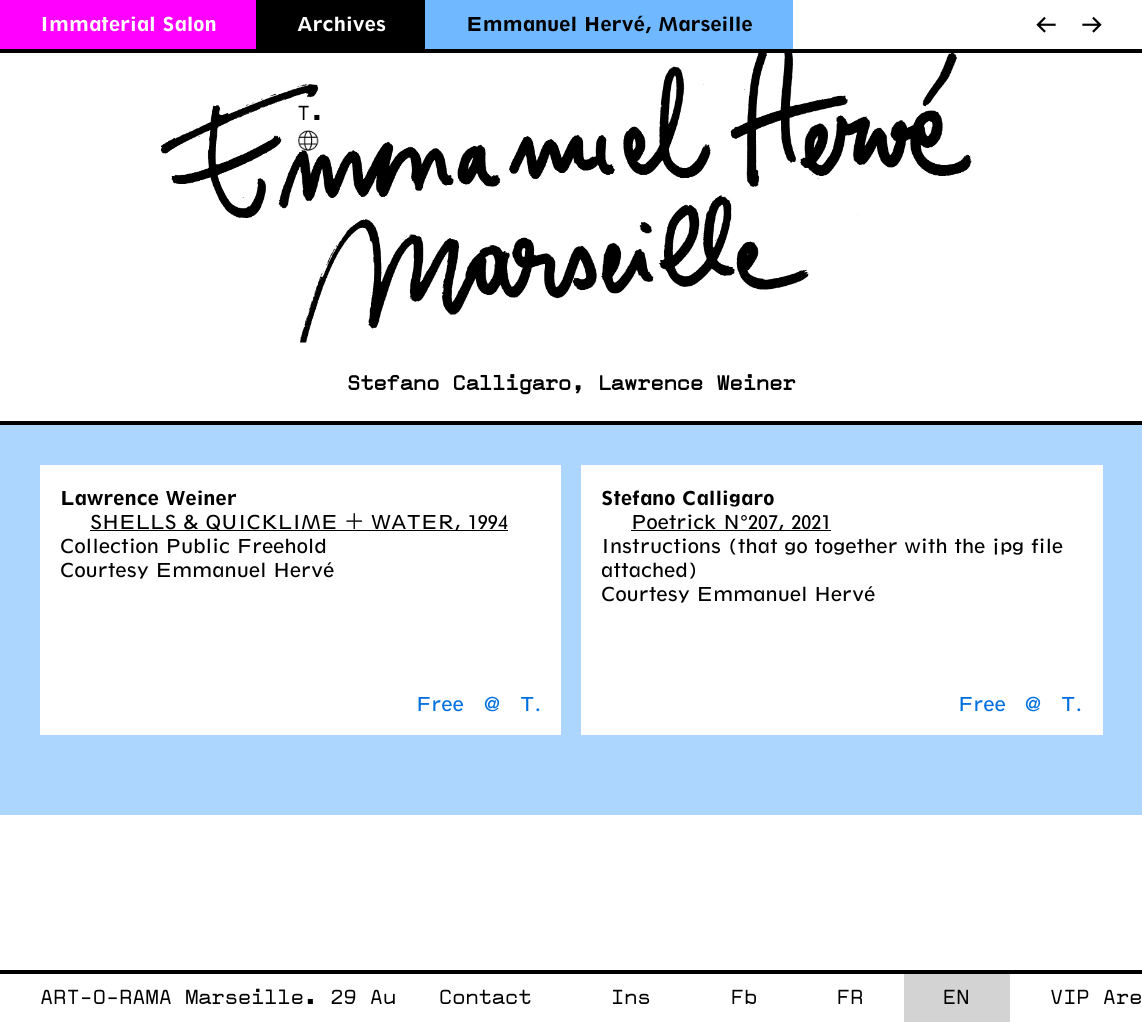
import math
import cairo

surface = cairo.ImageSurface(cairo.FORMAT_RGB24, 1142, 1022)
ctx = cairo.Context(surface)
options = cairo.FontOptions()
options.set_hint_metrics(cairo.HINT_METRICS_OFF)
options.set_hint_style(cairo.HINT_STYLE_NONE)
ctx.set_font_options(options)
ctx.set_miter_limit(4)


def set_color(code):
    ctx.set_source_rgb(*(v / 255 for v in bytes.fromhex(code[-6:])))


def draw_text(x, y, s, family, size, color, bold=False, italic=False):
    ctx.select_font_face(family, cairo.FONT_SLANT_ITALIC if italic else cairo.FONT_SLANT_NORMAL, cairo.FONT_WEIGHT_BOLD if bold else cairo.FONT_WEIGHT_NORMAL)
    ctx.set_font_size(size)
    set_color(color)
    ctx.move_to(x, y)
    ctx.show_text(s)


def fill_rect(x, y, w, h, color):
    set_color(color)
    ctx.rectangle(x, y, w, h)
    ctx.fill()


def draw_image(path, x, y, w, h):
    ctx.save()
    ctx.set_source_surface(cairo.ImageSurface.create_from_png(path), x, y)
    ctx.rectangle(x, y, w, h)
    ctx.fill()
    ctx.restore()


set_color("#ffffff")
ctx.paint()
fill_rect(0, 49, 1142, 4, "#000000")
fill_rect(0, 0, 256, 49, "#ff00ff")
draw_text(40, 31, "Immaterial Salon", "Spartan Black", 20, "#ffffff")
fill_rect(256, 0, 169, 49, "#000000")
draw_text(297, 31, "Archives", "Spartan Black", 20, "#ffffff")
fill_rect(425, 0, 368, 49, "#70b8ff")
draw_text(466, 31, "Emmanuel Hervé, Marseille", "Spartan Black", 20, "#000000")
draw_text(1036, 31, "←", "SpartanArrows", 20, "#000000")
draw_text(1082, 31, "→", "SpartanArrows", 20, "#000000")
fill_rect(0, 425, 1142, 390, "#add6ff")
fill_rect(0, 421, 1142, 4, "#000000")
draw_text(297, 120, "T.", "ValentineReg", 20, "#000000")
draw_image("assets/img2.png", 298, 130, 21, 21)
draw_image("assets/img1.png", 160, 49, 812, 294)
draw_text(347, 390, "Stefano Calligaro, Lawrence Weiner", "ValentineReg", 20, "#000000", bold=True)
fill_rect(40, 465, 521, 270, "#ffffff")
draw_text(60, 505, "Lawrence Weiner", "Spartan Black", 20, "#000000")
fill_rect(90, 530, 418, 1, "#000000")
draw_text(90, 529, "SHELLS & QUICKLIME + WATER, 1994", "Spartan", 20, "#000000")
draw_text(60, 553, "Collection Public Freehold", "Spartan", 20, "#000000")
draw_text(60, 577, "Courtesy Emmanuel Hervé", "Spartan", 20, "#000000")
draw_text(416, 711, "Free", "Spartan", 20, "#0070e0")
draw_text(484, 711, "@", "Spartan", 20, "#0070e0")
draw_text(520, 711, "T.", "Spartan", 20, "#0070e0")
fill_rect(581, 465, 522, 270, "#ffffff")
draw_text(601, 505, "Stefano Calligaro", "Spartan Black", 20, "#000000")
fill_rect(631, 530, 200, 1, "#000000")
draw_text(631, 529, "Poetrick N°207, 2021", "Spartan", 20, "#000000")
draw_text(601, 553, "Instructions (that go together with the jpg file", "Spartan", 20, "#000000")
draw_text(601, 577, "attached)", "Spartan", 20, "#000000")
draw_text(601, 601, "Courtesy Emmanuel Hervé", "Spartan", 20, "#000000")
draw_text(958, 711, "Free", "Spartan", 20, "#0070e0")
draw_text(1025, 711, "@", "Spartan", 20, "#0070e0")
draw_text(1061, 711, "T.", "Spartan", 20, "#0070e0")
fill_rect(0, 970, 1142, 4, "#000000")
draw_text(40, 1004, "ART-O-RAMA Marseille. 29 Au", "ValentineReg", 20, "#000000")
draw_text(439, 1004, "Contact", "ValentineReg", 20, "#000000")
draw_text(611, 1004, "Ins", "ValentineReg", 20, "#000000")
draw_text(731, 1004, "Fb", "ValentineReg", 20, "#000000")
draw_text(837, 1004, "FR", "ValentineReg", 20, "#000000")
fill_rect(904, 974, 106, 48, "#d3d3d3")
draw_text(943, 1004, "EN", "ValentineReg", 20, "#000000")
draw_text(1050, 1004, "VIP Are", "ValentineReg", 20, "#000000")
surface.write_to_png("output.png")
